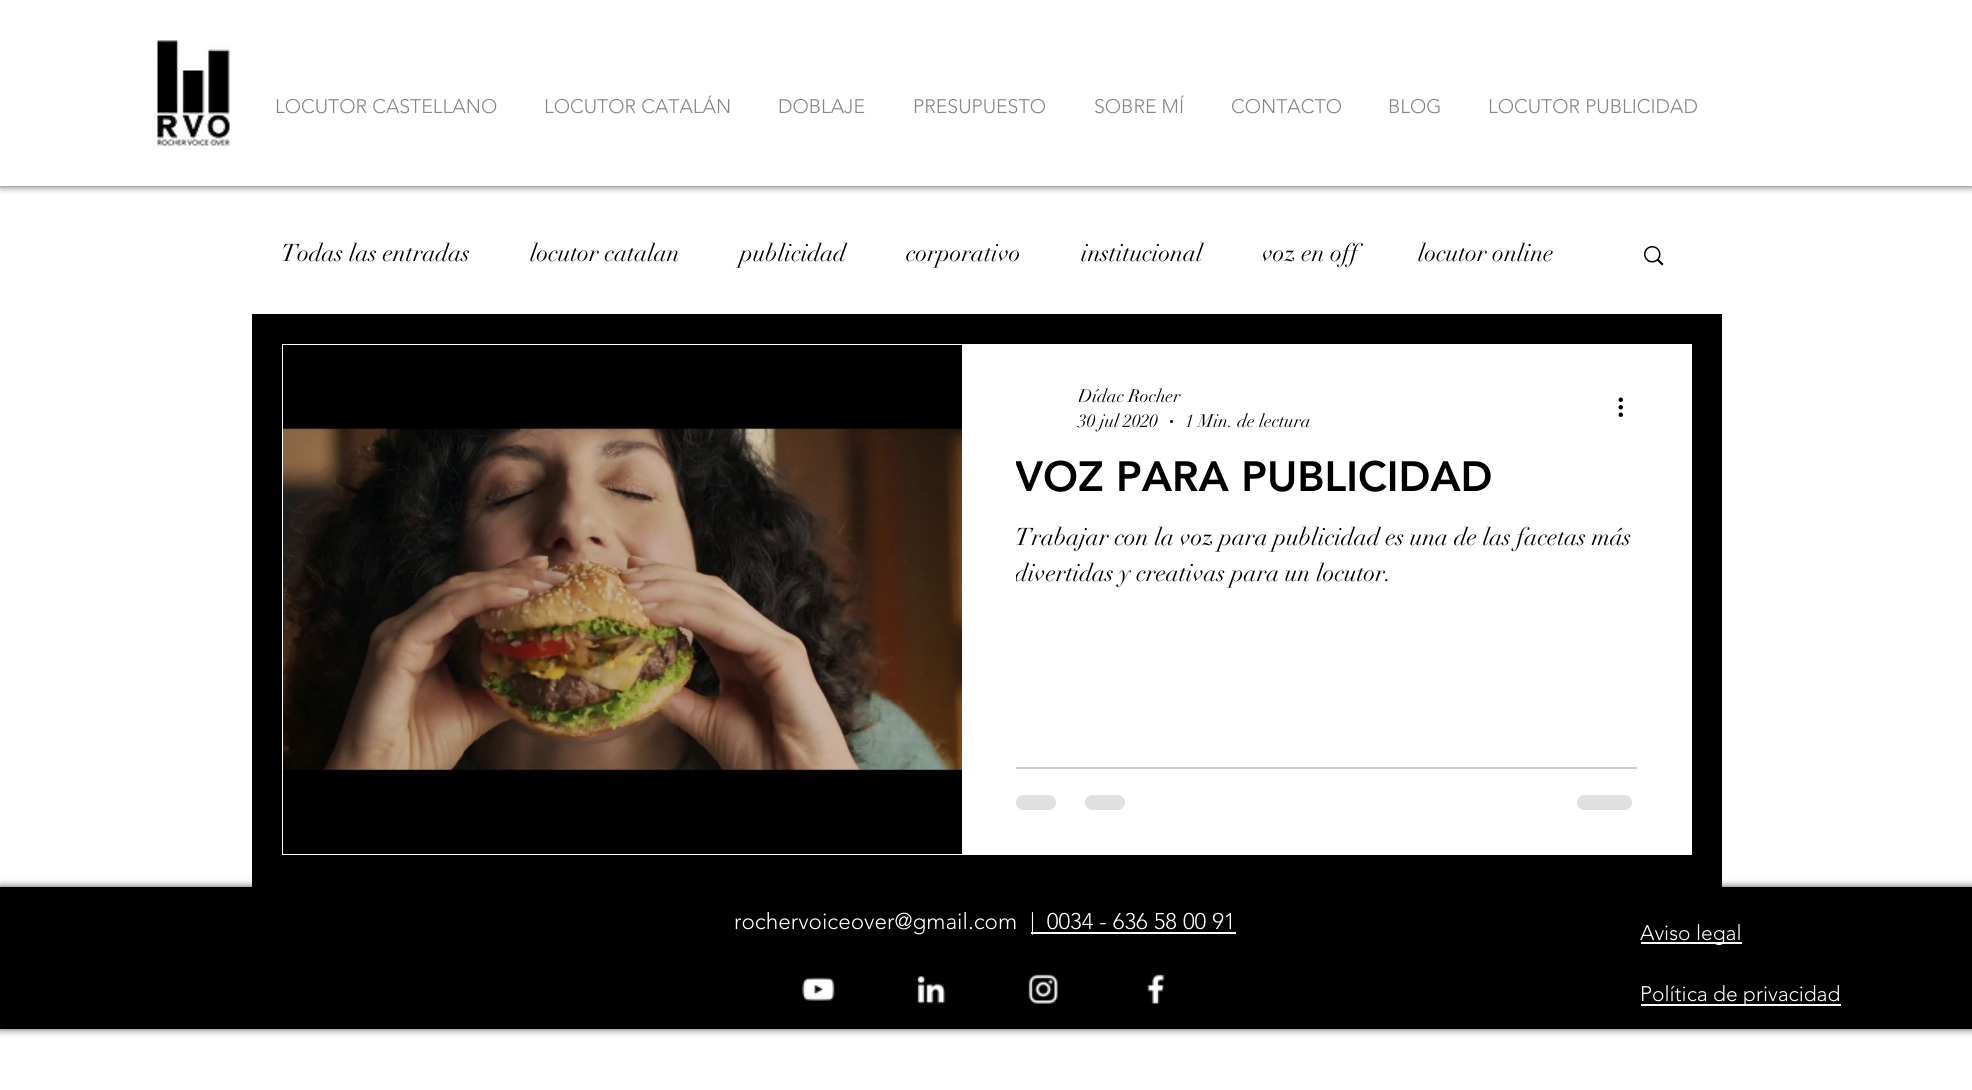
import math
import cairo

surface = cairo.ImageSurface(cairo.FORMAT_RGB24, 1972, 1090)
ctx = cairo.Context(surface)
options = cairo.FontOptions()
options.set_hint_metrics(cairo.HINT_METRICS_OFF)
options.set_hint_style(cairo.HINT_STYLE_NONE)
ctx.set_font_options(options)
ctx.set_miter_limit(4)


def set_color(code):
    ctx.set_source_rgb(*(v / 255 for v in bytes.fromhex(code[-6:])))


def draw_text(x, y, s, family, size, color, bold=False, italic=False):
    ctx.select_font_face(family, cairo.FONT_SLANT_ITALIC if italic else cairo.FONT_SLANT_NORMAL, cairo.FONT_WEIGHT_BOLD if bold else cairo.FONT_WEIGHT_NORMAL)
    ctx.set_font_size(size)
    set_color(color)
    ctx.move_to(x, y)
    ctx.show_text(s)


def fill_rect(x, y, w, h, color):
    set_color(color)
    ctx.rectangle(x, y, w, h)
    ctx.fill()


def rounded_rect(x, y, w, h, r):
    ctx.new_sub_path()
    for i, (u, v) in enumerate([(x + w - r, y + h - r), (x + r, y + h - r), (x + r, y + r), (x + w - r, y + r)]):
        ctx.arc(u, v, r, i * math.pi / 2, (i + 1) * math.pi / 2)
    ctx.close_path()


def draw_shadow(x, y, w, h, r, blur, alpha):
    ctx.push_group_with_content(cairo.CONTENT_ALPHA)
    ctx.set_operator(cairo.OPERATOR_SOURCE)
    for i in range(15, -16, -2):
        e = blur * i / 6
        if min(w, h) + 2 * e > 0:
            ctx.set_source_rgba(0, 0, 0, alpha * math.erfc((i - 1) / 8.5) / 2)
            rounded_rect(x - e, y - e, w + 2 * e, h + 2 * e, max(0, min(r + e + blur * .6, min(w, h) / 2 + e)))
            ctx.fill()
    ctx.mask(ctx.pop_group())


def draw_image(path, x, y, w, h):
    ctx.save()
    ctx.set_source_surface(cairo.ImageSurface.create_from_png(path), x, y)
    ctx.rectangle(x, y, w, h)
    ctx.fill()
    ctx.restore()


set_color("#ffffff")
ctx.paint()
ctx.save()
ctx.rectangle(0, 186, 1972, 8)
ctx.clip()
set_color("#000000")
draw_shadow(0, 0, 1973, 186, 0, 4, 0.7)
ctx.restore()
draw_image("assets/img1.png", 157, 40, 73, 109)
draw_text(275, 113, "LOCUTOR CASTELLANO", "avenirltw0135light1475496 Light", 19.5, "#858585")
draw_text(544, 113, "LOCUTOR CATALÁN", "avenirltw0135light1475496 Light", 19.5, "#858585")
draw_text(778, 113, "DOBLAJE", "avenirltw0135light1475496 Light", 19.5, "#858585")
draw_text(913, 113, "PRESUPUESTO", "avenirltw0135light1475496 Light", 19.5, "#858585")
draw_text(1094, 113, "SOBRE MÍ", "avenirltw0135light1475496 Light", 19.5, "#858585")
draw_text(1231, 113, "CONTACTO", "avenirltw0135light1475496 Light", 19.5, "#858585")
draw_text(1388, 113, "BLOG", "avenirltw0135light1475496 Light", 19.5, "#858585")
draw_text(1488, 113, "LOCUTOR PUBLICIDAD", "avenirltw0135light1475496 Light", 19.5, "#858585")
fill_rect(252, 314, 1470, 573, "#000000")
draw_text(281, 261, "Todas las entradas", "didot", 24, "#000000")
draw_text(530, 261, "locutor catalan", "didot", 24, "#000000")
draw_text(740, 261, "publicidad", "didot", 24, "#000000")
draw_text(906, 261, "corporativo", "didot", 24, "#000000")
draw_text(1081, 261, "institucional", "didot", 24, "#000000")
draw_text(1262, 261, "voz en off", "didot", 24, "#000000")
draw_text(1418, 261, "locutor online", "didot", 24, "#000000")
draw_image("assets/img2.png", 1644, 246, 20, 20)
ctx.rectangle(283, 345, 1408, 509)
set_color("#ffffff")
ctx.stroke()
draw_image("assets/img3.png", 283, 345, 679, 509)
fill_rect(962, 346, 728, 507, "#ffffff")
ctx.save()
ctx.rectangle(1079, 386, 102, 21)
ctx.clip()
draw_text(1078, 402, "Dídac Rocher", "didot", 18, "#000000")
ctx.restore()
draw_text(1078, 427, "30 jul 2020", "didot", 18, "#000000")
ctx.new_path()
ctx.arc(1171.5, 421.5, 1.5, 0, 2 * math.pi)
ctx.fill()
draw_text(1185, 427, "1 Min. de lectura", "didot", 18, "#000000")
draw_image("assets/img4.png", 1618, 397, 5, 20)
ctx.save()
ctx.rectangle(1016, 452, 621, 49)
ctx.clip()
draw_text(1015, 491, "VOZ PARA PUBLICIDAD", "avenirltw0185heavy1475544 Black", 42, "#000000")
ctx.restore()
draw_text(1015, 545, "Trabajar con la voz para publicidad es una de las facetas más", "didot", 24, "#000000")
ctx.save()
ctx.rectangle(1016, 519, 621, 72)
ctx.clip()
draw_text(1015, 581, "divertidas y creativas para un locutor.", "didot", 24, "#000000")
ctx.restore()
fill_rect(1016, 767, 621, 2, "#cccccc")
set_color("#e0e0e0")
rounded_rect(1016, 795, 40, 15, 7.5)
ctx.fill()
rounded_rect(1085, 795, 40, 15, 7.5)
ctx.fill()
rounded_rect(1577, 795, 55, 15, 7.5)
ctx.fill()
set_color("#000000")
draw_shadow(0, 887, 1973, 142, 0, 4, 0.7)
fill_rect(0, 887, 1972, 142, "#000000")
draw_text(734, 929, "rochervoiceover@gmail.com", "avenirltw0135light1475496 Light", 22.5, "#ffffff")
fill_rect(1031, 932, 205, 2, "#ffffff")
draw_text(1030, 929, "|  0034 - 636 58 00 91", "avenirltw0135light1475496 Light", 22.5, "#ffffff")
fill_rect(1641, 942, 101, 2, "#ffffff")
draw_text(1640, 940, "Aviso legal", "avenirltw0135light1475496 Light", 21, "#ffffff")
draw_image("assets/img5.png", 802, 977, 33, 24)
draw_image("assets/img6.png", 916, 976, 30, 28)
draw_image("assets/img7.png", 1028, 974, 30, 30)
draw_image("assets/img8.png", 1147, 974, 18, 30)
fill_rect(1641, 1004, 200, 2, "#ffffff")
draw_text(1640, 1001, "Política de privacidad", "avenirltw0135light1475496 Light", 21, "#ffffff")
surface.write_to_png("output.png")
